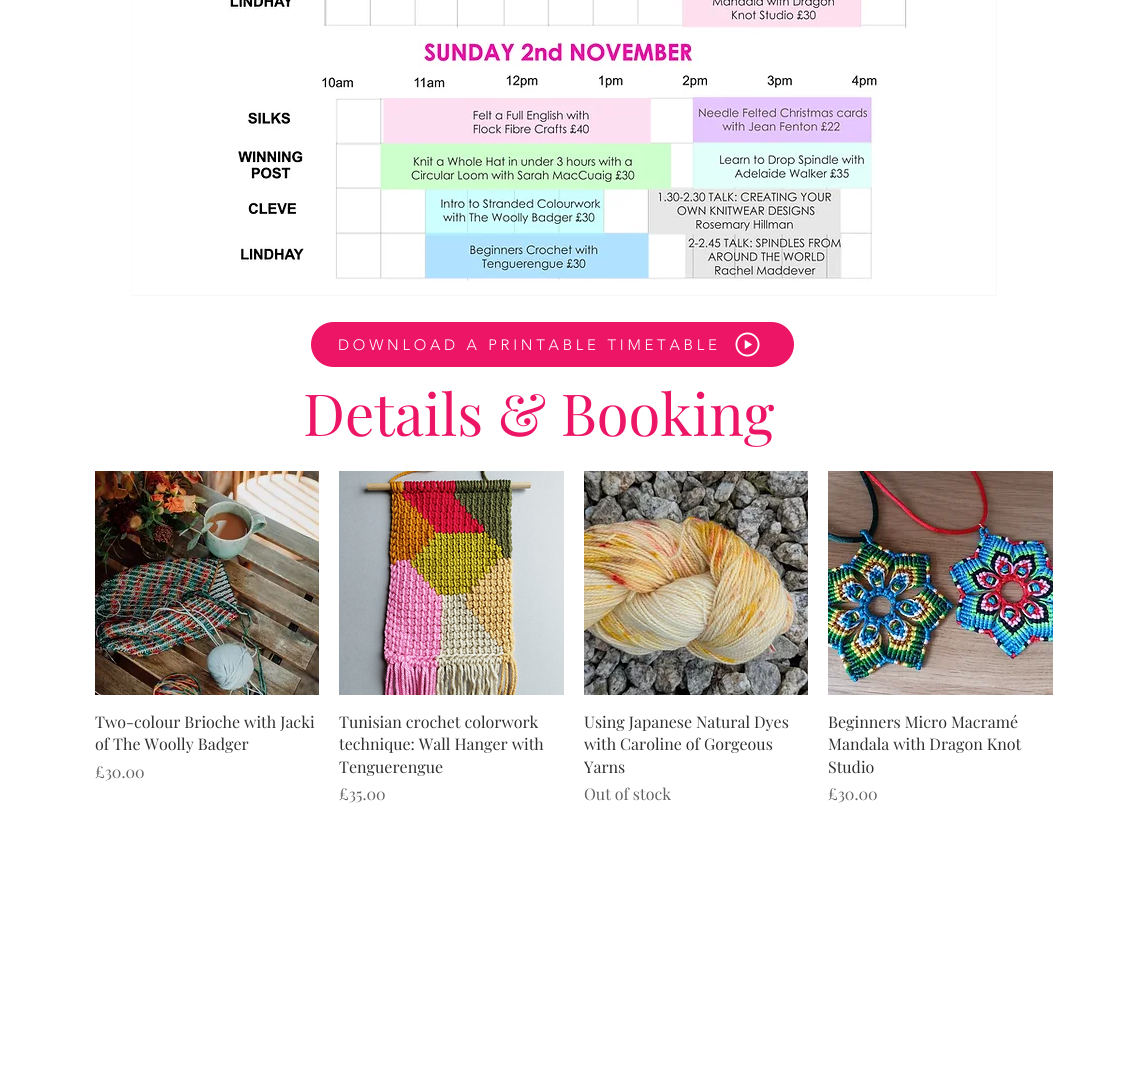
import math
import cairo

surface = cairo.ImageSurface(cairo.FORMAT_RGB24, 1133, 1069)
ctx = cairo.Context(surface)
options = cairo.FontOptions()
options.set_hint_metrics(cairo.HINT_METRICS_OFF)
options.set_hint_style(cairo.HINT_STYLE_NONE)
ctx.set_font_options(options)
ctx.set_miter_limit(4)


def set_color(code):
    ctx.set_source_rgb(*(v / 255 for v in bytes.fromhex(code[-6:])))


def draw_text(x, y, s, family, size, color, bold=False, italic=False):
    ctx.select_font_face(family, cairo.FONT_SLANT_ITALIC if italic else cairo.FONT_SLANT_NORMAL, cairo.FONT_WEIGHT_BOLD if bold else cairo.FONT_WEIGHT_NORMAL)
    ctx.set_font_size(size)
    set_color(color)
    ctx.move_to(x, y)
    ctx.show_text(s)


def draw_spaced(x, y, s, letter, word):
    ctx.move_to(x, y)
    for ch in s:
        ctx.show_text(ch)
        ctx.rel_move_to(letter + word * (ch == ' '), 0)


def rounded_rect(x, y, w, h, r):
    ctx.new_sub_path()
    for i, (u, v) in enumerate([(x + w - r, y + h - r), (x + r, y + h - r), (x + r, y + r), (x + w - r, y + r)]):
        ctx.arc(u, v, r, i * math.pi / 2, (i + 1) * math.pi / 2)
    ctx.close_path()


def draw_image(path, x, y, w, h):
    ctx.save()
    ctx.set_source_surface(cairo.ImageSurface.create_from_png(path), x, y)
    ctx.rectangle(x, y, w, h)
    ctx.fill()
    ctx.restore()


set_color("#ffffff")
ctx.paint()
draw_image("assets/img1.png", 131, 0, 866, 296)
set_color("#ed1566")
rounded_rect(311, 322, 483, 45, 22.5)
ctx.fill()
ctx.select_font_face("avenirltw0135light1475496 Light")
ctx.set_font_size(15)
set_color("#ffffff")
draw_spaced(338, 350, "DOWNLOAD A PRINTABLE TIMETABLE", 3.75, 0)
draw_image("assets/img2.png", 735, 332, 25, 25)
draw_text(303, 436, "Details & Booking", "Playfair Display", 58, "#ed1566")
draw_image("assets/img3.png", 95, 471, 224, 224)
draw_text(95, 728, "Two-colour Brioche with Jacki", "Playfair Display", 16, "#2f2e2e")
draw_text(95, 750, "of The Woolly Badger", "Playfair Display", 16, "#2f2e2e")
draw_text(95, 778, "£30.00", "Playfair Display", 16, "#636262")
draw_image("assets/img4.png", 339, 471, 225, 224)
draw_text(339, 728, "Tunisian crochet colorwork", "Playfair Display", 16, "#2f2e2e")
draw_text(339, 750, "technique: Wall Hanger with", "Playfair Display", 16, "#2f2e2e")
draw_text(339, 773, "Tenguerengue", "Playfair Display", 16, "#2f2e2e")
draw_text(339, 800, "£35.00", "Playfair Display", 16, "#636262")
draw_image("assets/img5.png", 584, 471, 224, 224)
draw_text(584, 728, "Using Japanese Natural Dyes", "Playfair Display", 16, "#2f2e2e")
draw_text(584, 750, "with Caroline of Gorgeous", "Playfair Display", 16, "#2f2e2e")
draw_text(584, 773, "Yarns", "Playfair Display", 16, "#2f2e2e")
draw_text(584, 800, "Out of stock", "Playfair Display", 16, "#636262")
draw_image("assets/img6.png", 828, 471, 225, 224)
draw_text(828, 728, "Beginners Micro Macramé", "Playfair Display", 16, "#2f2e2e")
draw_text(828, 750, "Mandala with Dragon Knot", "Playfair Display", 16, "#2f2e2e")
draw_text(828, 773, "Studio", "Playfair Display", 16, "#2f2e2e")
draw_text(828, 800, "£30.00", "Playfair Display", 16, "#636262")
surface.write_to_png("output.png")
